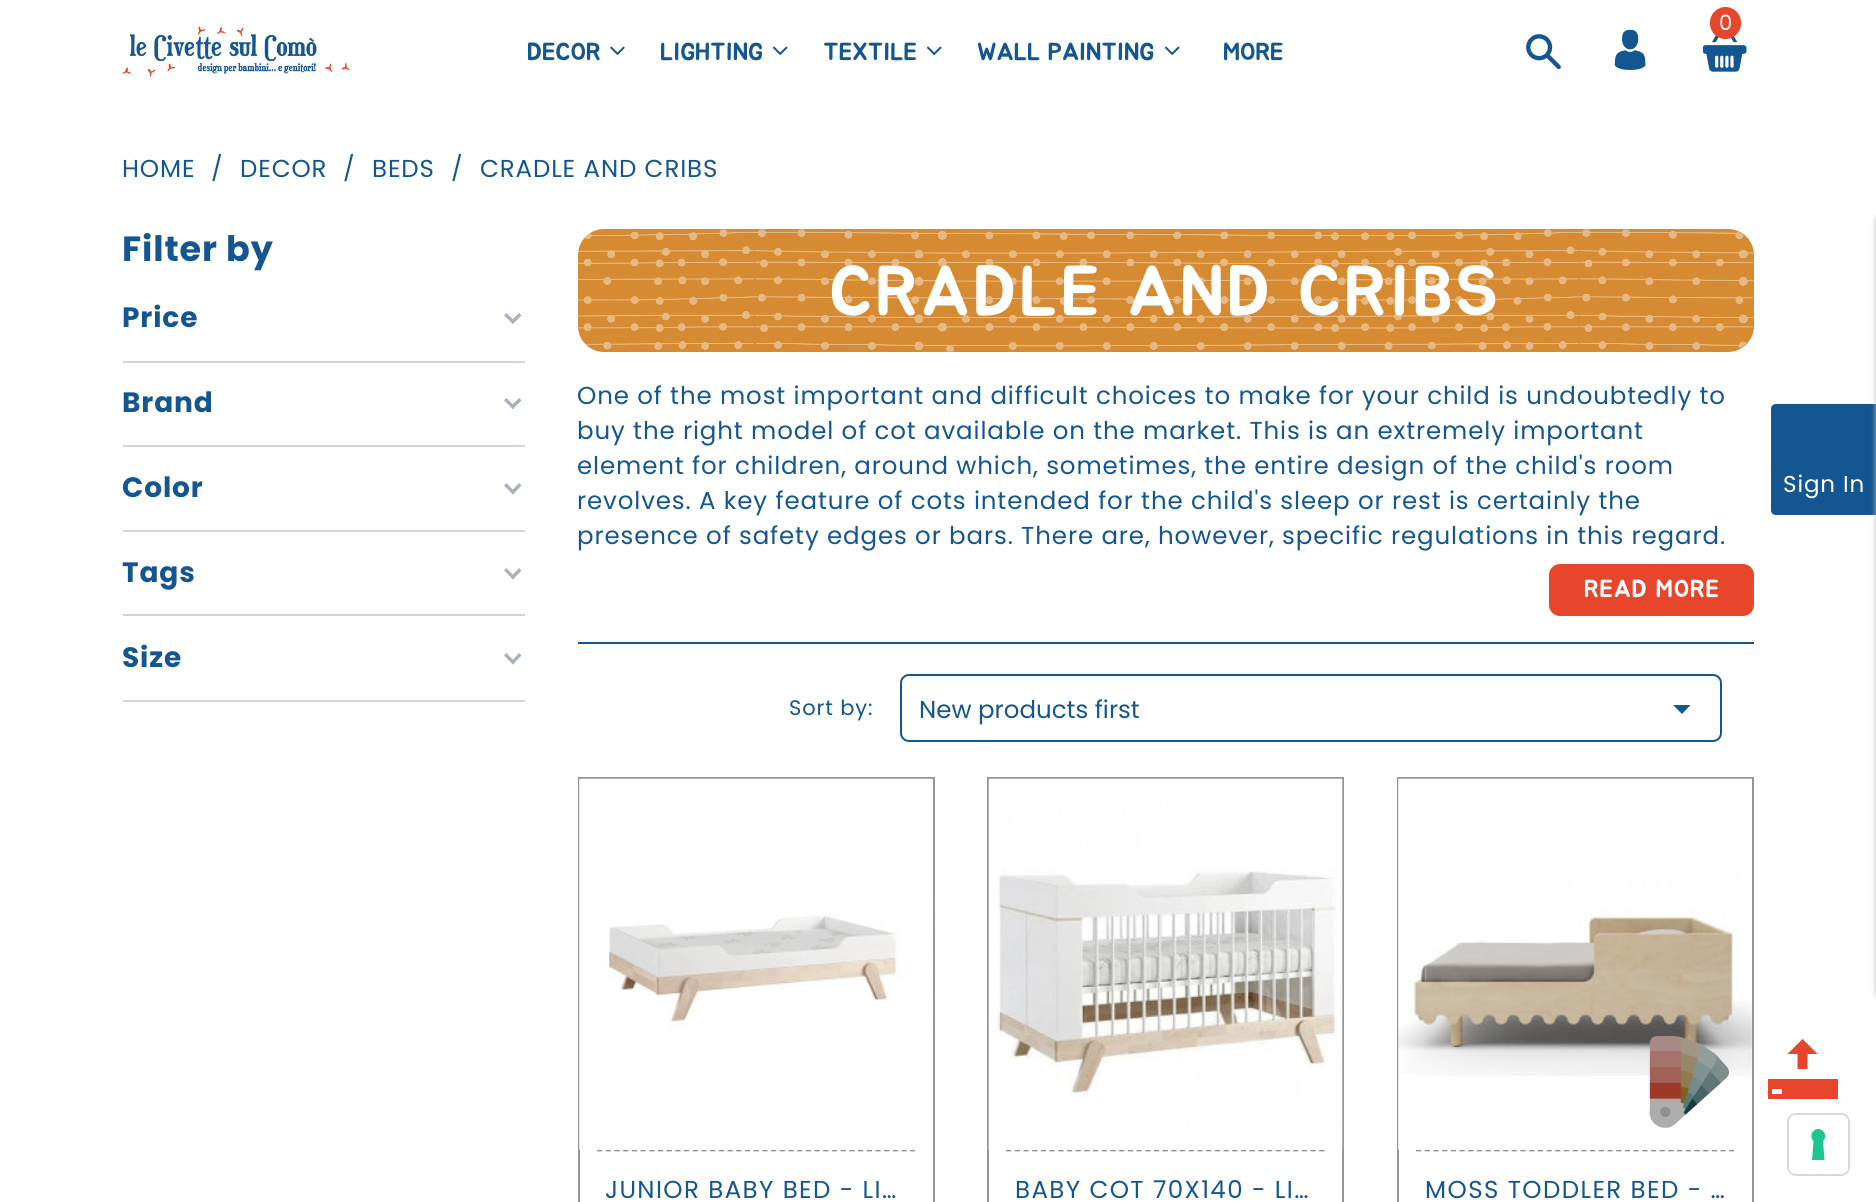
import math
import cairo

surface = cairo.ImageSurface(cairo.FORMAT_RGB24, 1876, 1202)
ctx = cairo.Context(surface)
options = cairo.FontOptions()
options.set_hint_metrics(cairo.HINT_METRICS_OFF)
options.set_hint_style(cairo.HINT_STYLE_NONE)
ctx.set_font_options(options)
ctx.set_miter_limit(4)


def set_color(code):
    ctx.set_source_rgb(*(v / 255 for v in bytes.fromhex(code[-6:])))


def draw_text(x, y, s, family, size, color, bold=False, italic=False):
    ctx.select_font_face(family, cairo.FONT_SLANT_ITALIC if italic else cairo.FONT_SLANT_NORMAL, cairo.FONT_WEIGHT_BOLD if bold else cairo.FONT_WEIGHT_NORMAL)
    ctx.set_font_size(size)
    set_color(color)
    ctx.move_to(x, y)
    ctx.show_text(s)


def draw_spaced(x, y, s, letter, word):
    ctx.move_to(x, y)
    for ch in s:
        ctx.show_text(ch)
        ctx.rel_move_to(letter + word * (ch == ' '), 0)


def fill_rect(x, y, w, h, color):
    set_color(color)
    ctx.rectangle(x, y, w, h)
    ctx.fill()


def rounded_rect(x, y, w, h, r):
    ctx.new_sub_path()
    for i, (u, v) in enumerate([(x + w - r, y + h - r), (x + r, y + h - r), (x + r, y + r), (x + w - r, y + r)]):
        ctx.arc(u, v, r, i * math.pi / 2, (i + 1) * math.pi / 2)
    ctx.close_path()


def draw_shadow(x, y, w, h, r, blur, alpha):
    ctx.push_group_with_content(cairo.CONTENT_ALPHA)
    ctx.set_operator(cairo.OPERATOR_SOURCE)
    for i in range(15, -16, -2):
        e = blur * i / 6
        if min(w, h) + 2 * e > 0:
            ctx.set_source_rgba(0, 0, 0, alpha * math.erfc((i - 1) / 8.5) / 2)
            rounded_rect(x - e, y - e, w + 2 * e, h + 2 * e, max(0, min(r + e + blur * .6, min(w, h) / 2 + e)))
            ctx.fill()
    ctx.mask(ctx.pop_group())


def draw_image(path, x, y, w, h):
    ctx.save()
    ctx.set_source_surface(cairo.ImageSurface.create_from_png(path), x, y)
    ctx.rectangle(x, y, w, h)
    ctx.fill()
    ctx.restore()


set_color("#ffffff")
ctx.paint()
draw_image("assets/img1.png", 122, 26, 228, 51)
draw_image("assets/img2.png", 1703, 35, 44, 37)
set_color("#e8452d")
rounded_rect(1710, 7, 31, 32, 15.5)
ctx.fill()
ctx.select_font_face("Poppins")
ctx.set_font_size(21)
set_color("#ffffff")
draw_spaced(1719, 30, "0", 2, 0)
draw_text(527, 60, "DECOR", "Jua", 24.5, "#135692")
draw_image("assets/img3.png", 610, 46, 15, 9)
draw_text(660, 60, "LIGHTING", "Jua", 24.5, "#135692")
draw_image("assets/img4.png", 772, 46, 16, 9)
draw_text(823, 60, "TEXTILE", "Jua", 24.5, "#135692")
draw_image("assets/img4.png", 926, 46, 16, 9)
draw_text(977, 60, "WALL PAINTING", "Jua", 24.5, "#135692")
draw_image("assets/img4.png", 1164, 46, 16, 9)
draw_text(1223, 60, "MORE", "Jua", 24.5, "#135692")
draw_image("assets/img5.png", 1614, 29, 32, 41)
draw_image("assets/img6.png", 1526, 34, 35, 36)
ctx.new_path()
ctx.move_to(1776, 404)
ctx.line_to(1876, 404)
ctx.line_to(1876, 515)
ctx.line_to(1776, 515)
ctx.curve_to(1773, 515, 1771, 513, 1771, 510)
ctx.line_to(1771, 409)
ctx.curve_to(1771, 406, 1773, 404, 1776, 404)
ctx.close_path()
ctx.fill()
ctx.select_font_face("Poppins")
ctx.set_font_size(23)
set_color("#ffffff")
draw_spaced(1783, 492, "Sign In", 0.88, 0)
set_color("#bbbbbb")
draw_shadow(1876, 215, 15, 783, 7, 2.5, 1)
ctx.set_font_size(24.5)
set_color("#135692")
draw_spaced(122, 177, "HOME", 0.88, 0)
draw_spaced(211, 177, "/", 0.88, 0)
draw_spaced(240, 177, "DECOR", 0.88, 0)
draw_spaced(343, 177, "/", 0.88, 0)
draw_spaced(372, 177, "BEDS", 0.88, 0)
draw_spaced(451, 177, "/", 0.88, 0)
draw_spaced(480, 177, "CRADLE AND CRIBS", 0.88, 0)
ctx.select_font_face("Poppins", cairo.FONT_SLANT_NORMAL, cairo.FONT_WEIGHT_BOLD)
ctx.set_font_size(35)
draw_spaced(122, 261, "Filter by", 0.88, 0)
fill_rect(123, 361, 402, 2, "#d0d5db")
ctx.set_font_size(28)
set_color("#135692")
draw_spaced(122, 327, "Price", 0.88, 0)
set_color("#aab2bd")
ctx.new_path()
ctx.move_to(519, 313)
ctx.line_to(521.5, 315.5)
ctx.line_to(513, 324)
ctx.line_to(510.5, 321.5)
ctx.close_path()
ctx.fill()
ctx.new_path()
ctx.move_to(506.5, 313)
ctx.line_to(515, 321.5)
ctx.line_to(513, 324)
ctx.line_to(504, 315.5)
ctx.close_path()
ctx.fill()
fill_rect(123, 445, 402, 2, "#d0d5db")
set_color("#135692")
draw_spaced(122, 412, "Brand", 0.88, 0)
set_color("#aab2bd")
ctx.new_path()
ctx.move_to(519, 398)
ctx.line_to(521.5, 400.5)
ctx.line_to(513, 409)
ctx.line_to(510.5, 406.5)
ctx.close_path()
ctx.fill()
ctx.new_path()
ctx.move_to(506.5, 398)
ctx.line_to(515, 406.5)
ctx.line_to(513, 409)
ctx.line_to(504, 400.5)
ctx.close_path()
ctx.fill()
fill_rect(123, 530, 402, 2, "#d0d5db")
set_color("#135692")
draw_spaced(122, 497, "Color", 0.88, 0)
set_color("#aab2bd")
ctx.new_path()
ctx.move_to(519, 483)
ctx.line_to(521.5, 485.5)
ctx.line_to(513, 494.5)
ctx.line_to(510.5, 492)
ctx.close_path()
ctx.fill()
ctx.new_path()
ctx.move_to(506.5, 483)
ctx.line_to(515, 492)
ctx.line_to(513, 494.5)
ctx.line_to(504, 485.5)
ctx.close_path()
ctx.fill()
fill_rect(123, 614, 402, 2, "#d0d5db")
set_color("#135692")
draw_spaced(122, 582, "Tags", 0.88, 0)
set_color("#aab2bd")
ctx.new_path()
ctx.move_to(519, 568)
ctx.line_to(521.5, 570.5)
ctx.line_to(513, 579.5)
ctx.line_to(510.5, 577)
ctx.close_path()
ctx.fill()
ctx.new_path()
ctx.move_to(506.5, 568)
ctx.line_to(515, 577)
ctx.line_to(513, 579.5)
ctx.line_to(504, 570.5)
ctx.close_path()
ctx.fill()
fill_rect(123, 700, 402, 2, "#d0d5db")
set_color("#135692")
draw_spaced(122, 667, "Size", 0.88, 0)
set_color("#aab2bd")
ctx.new_path()
ctx.move_to(519, 653)
ctx.line_to(521.5, 655.5)
ctx.line_to(513, 664.5)
ctx.line_to(510.5, 662)
ctx.close_path()
ctx.fill()
ctx.new_path()
ctx.move_to(506.5, 653)
ctx.line_to(515, 662)
ctx.line_to(513, 664.5)
ctx.line_to(504, 655.5)
ctx.close_path()
ctx.fill()
fill_rect(578, 642, 1176, 2, "#135692")
set_color("#d68b32")
rounded_rect(578, 229, 1176, 123, 26)
ctx.fill()
draw_image("assets/img7.png", 578, 229, 1176, 123)
ctx.select_font_face("Jua")
ctx.set_font_size(70)
set_color("#ffffff")
draw_spaced(829, 315, "CRADLE AND CRIBS", 3.5, 0)
ctx.save()
ctx.rectangle(578, 378, 1176, 175)
ctx.clip()
ctx.select_font_face("Poppins")
ctx.set_font_size(24.5)
set_color("#135692")
draw_spaced(577, 404, "One of the most important and difficult choices to make for your child is undoubtedly to", 0.88, 0)
ctx.restore()
ctx.select_font_face("Poppins")
ctx.set_font_size(24.5)
set_color("#135692")
draw_spaced(577, 439, "buy the right model of cot available on the market. This is an extremely important", 0.88, 0)
ctx.save()
ctx.rectangle(578, 378, 1176, 175)
ctx.clip()
draw_spaced(577, 474, "element for children, around which, sometimes, the entire design of the child's room", 0.88, 0)
ctx.restore()
draw_spaced(577, 509, "revolves. A key feature of cots intended for the child's sleep or rest is certainly the", 0.88, 0)
draw_spaced(577, 544, "presence of safety edges or bars. There are, however, specific regulations in this regard.", 0.88, 0)
set_color("#e8452d")
rounded_rect(1549, 564, 205, 52, 11)
ctx.fill()
ctx.select_font_face("Jua")
set_color("#ffffff")
draw_spaced(1584, 597, "READ MORE", 0.88, 0)
ctx.select_font_face("Poppins")
ctx.set_font_size(21)
set_color("#135692")
draw_spaced(789, 715, "Sort by:", 0.88, 0)
rounded_rect(901, 675, 820, 66, 8)
ctx.stroke()
draw_text(919, 718, "New products first", "Poppins", 24.5, "#135692")
ctx.new_path()
ctx.move_to(1673, 705)
ctx.line_to(1690.5, 705)
ctx.line_to(1682, 714)
ctx.close_path()
ctx.fill()
ctx.rectangle(579, 778, 355, 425)
set_color("#939598")
ctx.stroke()
ctx.new_path()
ctx.move_to(597, 1150.5)
ctx.line_to(915, 1150.5)
ctx.set_line_width(1.8)
ctx.set_dash([5.25, 3.45])
ctx.stroke()
draw_image("assets/img8.png", 579, 778, 354, 372)
set_color("#135692")
draw_spaced(605, 1198, "JUNIOR BABY BED - LI…", 1.4, 0)
ctx.rectangle(988, 778, 355, 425)
set_color("#939598")
ctx.set_line_width(2)
ctx.set_dash([])
ctx.stroke()
ctx.new_path()
ctx.move_to(1006, 1150.5)
ctx.line_to(1325, 1150.5)
ctx.set_line_width(1.8)
ctx.set_dash([5.25, 3.45])
ctx.stroke()
draw_image("assets/img9.png", 988, 778, 355, 372)
set_color("#135692")
draw_spaced(1015, 1198, "BABY COT 70X140 - LI…", 1.4, 0)
ctx.rectangle(1398, 778, 355, 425)
set_color("#939598")
ctx.set_line_width(2)
ctx.set_dash([])
ctx.stroke()
ctx.new_path()
ctx.move_to(1416, 1150.5)
ctx.line_to(1734, 1150.5)
ctx.set_line_width(1.8)
ctx.set_dash([5.25, 3.45])
ctx.stroke()
draw_image("assets/img10.png", 1398, 778, 354, 372)
draw_image("assets/img11.png", 1649, 1036, 80, 92)
set_color("#135692")
draw_spaced(1425, 1198, "MOSS TODDLER BED - …", 1.4, 0)
set_color("#e8452d")
ctx.new_path()
ctx.move_to(1817.5, 1054)
ctx.line_to(1807.5, 1054)
ctx.line_to(1807.5, 1069)
ctx.line_to(1797.5, 1069)
ctx.line_to(1797.5, 1054)
ctx.line_to(1787.5, 1054)
ctx.line_to(1802.5, 1039)
ctx.close_path()
ctx.fill()
ctx.new_path()
ctx.move_to(1768, 1079)
ctx.line_to(1768, 1099)
ctx.line_to(1838, 1099)
ctx.line_to(1838, 1079)
ctx.close_path()
ctx.move_to(1782, 1094)
ctx.line_to(1772, 1094)
ctx.line_to(1772, 1089)
ctx.line_to(1782, 1089)
ctx.close_path()
ctx.fill()
rounded_rect(1788, 1114, 61, 61, 8)
set_color("#d9d9d9")
ctx.set_line_width(2)
ctx.set_dash([])
ctx.stroke()
set_color("#ffffff")
rounded_rect(1789, 1115, 59, 59, 7)
ctx.fill()
set_color("#1cc691")
ctx.set_fill_rule(cairo.FILL_RULE_EVEN_ODD)
ctx.new_path()
ctx.move_to(1818, 1129)
ctx.curve_to(1824.5, 1129, 1827.5, 1137, 1823, 1141)
ctx.line_to(1824.5, 1160)
ctx.line_to(1812, 1160)
ctx.line_to(1813.5, 1141)
ctx.curve_to(1809, 1137, 1812, 1129, 1818, 1129)
ctx.close_path()
ctx.fill()
surface.write_to_png("output.png")
